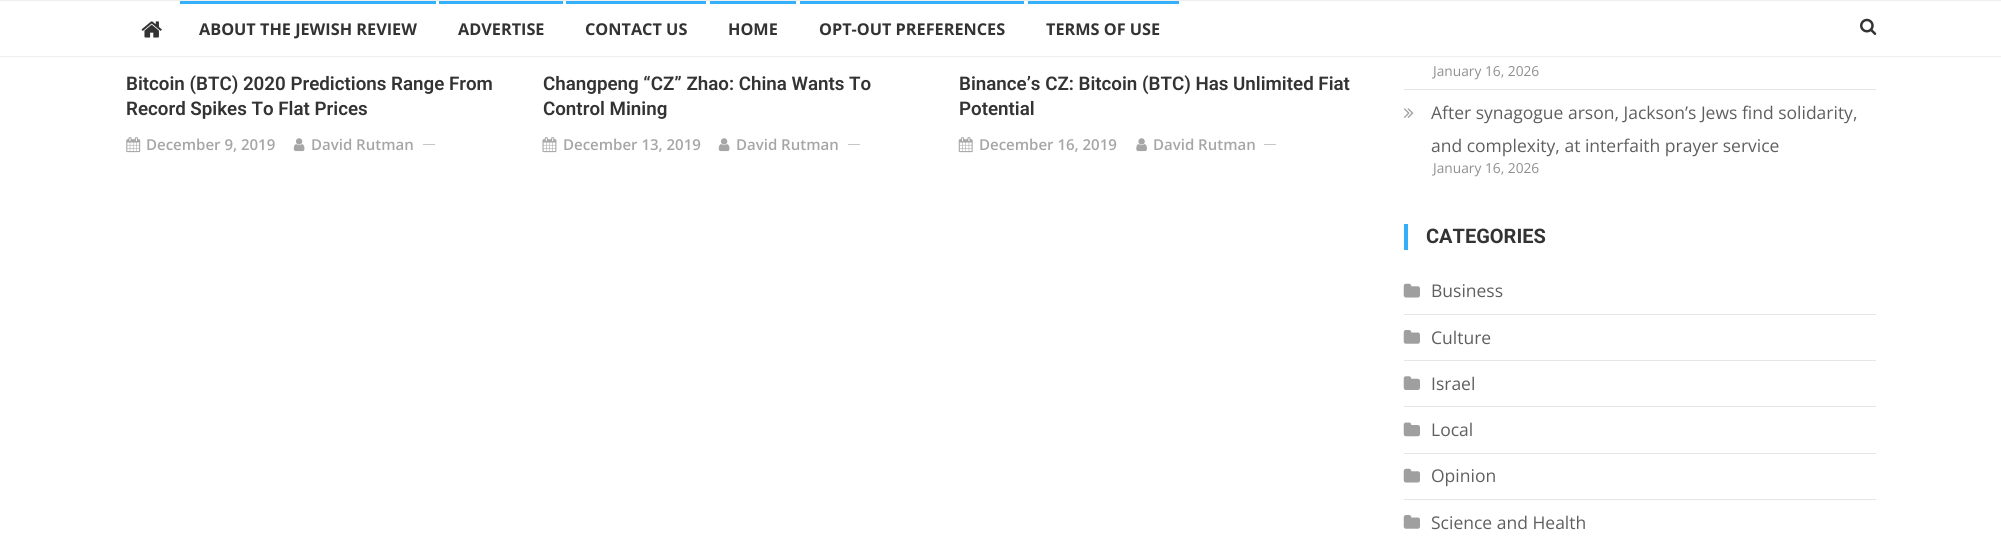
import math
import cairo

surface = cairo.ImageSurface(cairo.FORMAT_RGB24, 2001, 540)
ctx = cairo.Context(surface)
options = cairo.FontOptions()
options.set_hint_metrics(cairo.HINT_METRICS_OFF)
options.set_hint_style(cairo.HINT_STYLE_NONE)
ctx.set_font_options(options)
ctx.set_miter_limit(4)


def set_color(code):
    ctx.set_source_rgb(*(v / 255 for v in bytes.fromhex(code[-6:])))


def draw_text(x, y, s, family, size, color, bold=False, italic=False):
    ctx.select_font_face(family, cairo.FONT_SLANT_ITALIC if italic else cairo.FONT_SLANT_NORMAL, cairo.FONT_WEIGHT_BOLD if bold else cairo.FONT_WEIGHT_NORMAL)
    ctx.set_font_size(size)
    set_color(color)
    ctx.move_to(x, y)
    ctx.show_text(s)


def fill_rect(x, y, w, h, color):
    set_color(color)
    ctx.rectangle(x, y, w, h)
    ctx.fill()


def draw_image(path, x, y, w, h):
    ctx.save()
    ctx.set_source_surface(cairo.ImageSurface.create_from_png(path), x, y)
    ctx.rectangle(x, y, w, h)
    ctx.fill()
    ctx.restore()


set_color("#ffffff")
ctx.paint()
fill_rect(0, 0, 2001, 1, "#eeeeee")
fill_rect(0, 56, 2001, 1, "#eeeeee")
draw_image("assets/img1.png", 141, 21, 21, 17)
fill_rect(180, 1, 256, 3, "#34b0fa")
draw_text(199, 35, "ABOUT THE JEWISH REVIEW", "Open Sans", 16.25, "#333333", bold=True)
fill_rect(439, 1, 124, 3, "#34b0fa")
draw_text(458, 35, "ADVERTISE", "Open Sans", 16.25, "#333333", bold=True)
fill_rect(566, 1, 140, 3, "#34b0fa")
draw_text(585, 35, "CONTACT US", "Open Sans", 16.25, "#333333", bold=True)
fill_rect(710, 1, 86, 3, "#34b0fa")
draw_text(728, 35, "HOME", "Open Sans", 16.25, "#333333", bold=True)
fill_rect(800, 1, 224, 3, "#34b0fa")
draw_text(819, 35, "OPT-OUT PREFERENCES", "Open Sans", 16.25, "#333333", bold=True)
fill_rect(1028, 1, 151, 3, "#34b0fa")
draw_text(1046, 35, "TERMS OF USE", "Open Sans", 16.25, "#333333", bold=True)
draw_image("assets/img2.png", 1860, 18, 17, 17)
draw_text(126, 90, "Bitcoin (BTC) 2020 Predictions Range From", "Roboto SemiBold", 18.75, "#333333")
draw_text(126, 115, "Record Spikes To Flat Prices", "Roboto SemiBold", 18.75, "#333333")
draw_image("assets/img3.png", 126, 137, 15, 16)
draw_text(146, 150, "December 9, 2019", "Open Sans SemiBold", 15, "#a6a6a6")
draw_image("assets/img4.png", 293, 138, 12, 14)
draw_text(311, 150, "David Rutman", "Open Sans SemiBold", 15, "#a6a6a6")
fill_rect(423, 144, 12, 1, "#c6c6c6")
draw_text(543, 90, "Changpeng “CZ” Zhao: China Wants To", "Roboto SemiBold", 18.75, "#333333")
draw_text(543, 115, "Control Mining", "Roboto SemiBold", 18.75, "#333333")
draw_image("assets/img5.png", 542, 137, 15, 16)
draw_text(563, 150, "December 13, 2019", "Open Sans SemiBold", 15, "#a6a6a6")
draw_image("assets/img4.png", 718, 138, 12, 14)
draw_text(736, 150, "David Rutman", "Open Sans SemiBold", 15, "#a6a6a6")
fill_rect(848, 144, 12, 1, "#c6c6c6")
draw_text(959, 90, "Binance’s CZ: Bitcoin (BTC) Has Unlimited Fiat", "Roboto SemiBold", 18.75, "#333333")
draw_text(959, 115, "Potential", "Roboto SemiBold", 18.75, "#333333")
draw_image("assets/img6.png", 958, 137, 15, 16)
draw_text(979, 150, "December 16, 2019", "Open Sans SemiBold", 15, "#a6a6a6")
draw_image("assets/img7.png", 1136, 138, 11, 14)
draw_text(1153, 150, "David Rutman", "Open Sans SemiBold", 15, "#a6a6a6")
fill_rect(1264, 144, 12, 1, "#c6c6c6")
fill_rect(1404, 89, 472, 1, "#e6e6e6")
draw_text(1433, 76, "January 16, 2026", "Open Sans", 13.75, "#8f8f8f")
draw_image("assets/img8.png", 1404, 108, 10, 10)
draw_text(1431, 119, "After synagogue arson, Jackson’s Jews find solidarity,", "Open Sans", 17.5, "#5f5f5f")
draw_text(1431, 152, "and complexity, at interfaith prayer service", "Open Sans", 17.5, "#5f5f5f")
draw_text(1433, 173, "January 16, 2026", "Open Sans", 13.75, "#8f8f8f")
fill_rect(1404, 224, 4, 26, "#34b0fa")
draw_text(1426, 243, "CATEGORIES", "Roboto", 20, "#333333", bold=True)
fill_rect(1404, 314, 472, 1, "#e6e6e6")
draw_image("assets/img9.png", 1403, 283, 17, 15)
draw_text(1431, 297, "Business", "Open Sans", 17.5, "#5f5f5f")
fill_rect(1404, 360, 472, 1, "#e6e6e6")
draw_image("assets/img10.png", 1403, 330, 17, 14)
draw_text(1431, 344, "Culture", "Open Sans", 17.5, "#5f5f5f")
fill_rect(1404, 406, 472, 1, "#e6e6e6")
draw_image("assets/img11.png", 1403, 376, 17, 14)
draw_text(1431, 390, "Israel", "Open Sans", 17.5, "#5f5f5f")
fill_rect(1404, 453, 472, 1, "#e6e6e6")
draw_image("assets/img12.png", 1403, 422, 17, 15)
draw_text(1431, 436, "Local", "Open Sans", 17.5, "#5f5f5f")
fill_rect(1404, 499, 472, 1, "#e6e6e6")
draw_image("assets/img9.png", 1403, 468, 17, 15)
draw_text(1431, 482, "Opinion", "Open Sans", 17.5, "#5f5f5f")
draw_image("assets/img10.png", 1403, 515, 17, 14)
draw_text(1431, 529, "Science and Health", "Open Sans", 17.5, "#5f5f5f")
surface.write_to_png("output.png")
